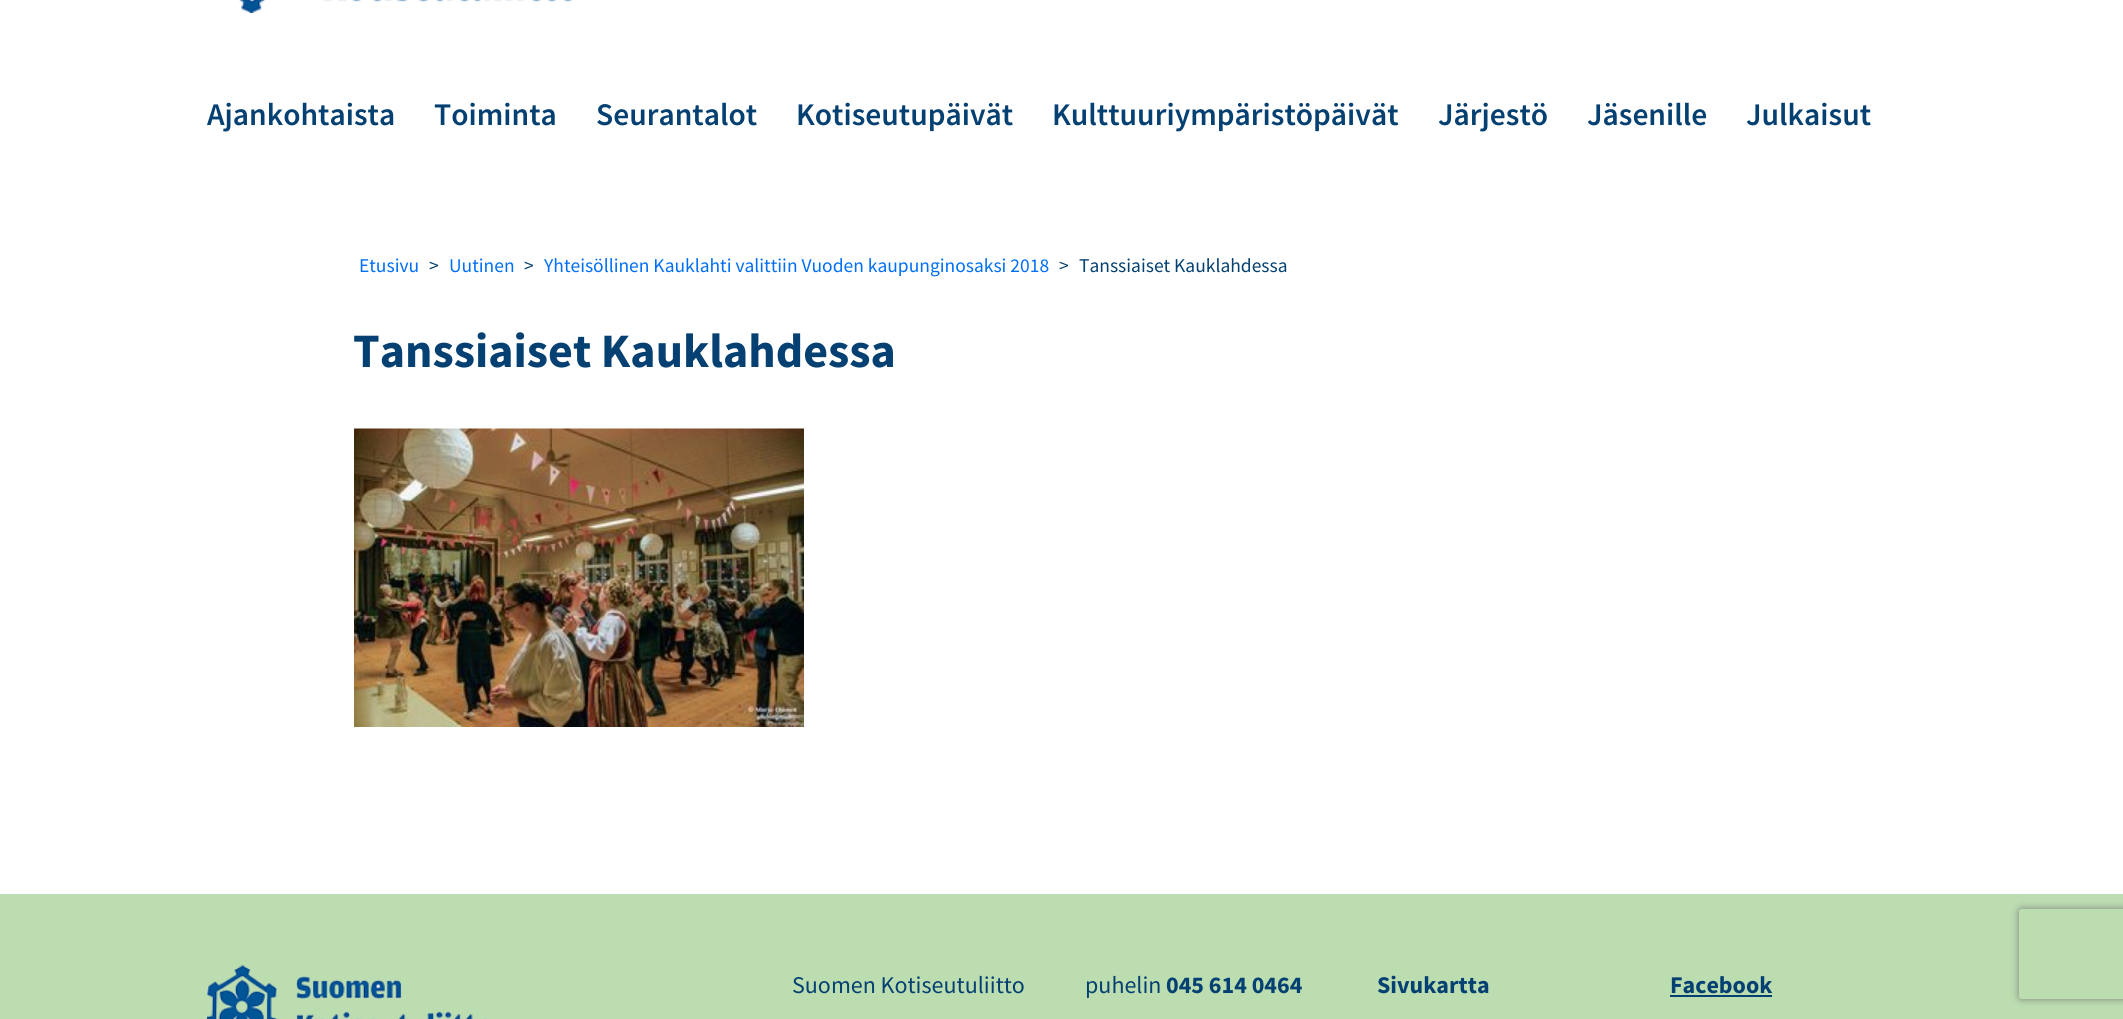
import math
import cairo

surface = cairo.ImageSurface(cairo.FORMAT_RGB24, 2123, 1019)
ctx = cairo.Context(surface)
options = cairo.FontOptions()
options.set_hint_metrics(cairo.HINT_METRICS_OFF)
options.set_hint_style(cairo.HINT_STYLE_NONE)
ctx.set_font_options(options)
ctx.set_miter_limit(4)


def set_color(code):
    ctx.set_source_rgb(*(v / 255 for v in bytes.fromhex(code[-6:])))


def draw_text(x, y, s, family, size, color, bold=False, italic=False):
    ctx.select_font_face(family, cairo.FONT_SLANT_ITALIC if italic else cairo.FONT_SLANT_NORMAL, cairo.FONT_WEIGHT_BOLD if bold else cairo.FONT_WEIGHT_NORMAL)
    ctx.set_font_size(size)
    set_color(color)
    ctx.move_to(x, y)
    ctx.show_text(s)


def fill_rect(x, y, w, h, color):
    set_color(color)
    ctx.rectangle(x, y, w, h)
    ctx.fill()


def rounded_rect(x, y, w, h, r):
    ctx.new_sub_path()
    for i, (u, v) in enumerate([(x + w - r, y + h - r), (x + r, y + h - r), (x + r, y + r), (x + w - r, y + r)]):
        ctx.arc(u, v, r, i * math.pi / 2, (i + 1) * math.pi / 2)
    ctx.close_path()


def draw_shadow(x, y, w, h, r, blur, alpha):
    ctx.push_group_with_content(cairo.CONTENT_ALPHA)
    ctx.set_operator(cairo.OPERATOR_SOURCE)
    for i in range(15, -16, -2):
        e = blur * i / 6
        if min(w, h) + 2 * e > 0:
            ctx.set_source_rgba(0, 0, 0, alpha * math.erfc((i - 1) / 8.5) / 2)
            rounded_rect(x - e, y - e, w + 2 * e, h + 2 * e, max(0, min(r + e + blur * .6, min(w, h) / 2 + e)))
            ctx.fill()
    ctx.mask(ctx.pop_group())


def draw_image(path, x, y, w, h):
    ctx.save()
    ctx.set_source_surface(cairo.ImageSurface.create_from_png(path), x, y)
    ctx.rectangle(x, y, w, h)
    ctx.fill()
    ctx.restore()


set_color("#ffffff")
ctx.paint()
draw_image("assets/img1.png", 239, 0, 333, 13)
draw_text(207, 125, "Ajankohtaista", "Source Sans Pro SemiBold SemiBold", 31.5, "#044071")
draw_text(434, 125, "Toiminta", "Source Sans Pro SemiBold SemiBold", 31.5, "#044071")
draw_text(596, 125, "Seurantalot", "Source Sans Pro SemiBold SemiBold", 31.5, "#044071")
draw_text(796, 125, "Kotiseutupäivät", "Source Sans Pro SemiBold SemiBold", 31.5, "#044071")
draw_text(1052, 125, "Kulttuuriympäristöpäivät", "Source Sans Pro SemiBold SemiBold", 31.5, "#044071")
draw_text(1438, 125, "Järjestö", "Source Sans Pro SemiBold SemiBold", 31.5, "#044071")
draw_text(1587, 125, "Jäsenille", "Source Sans Pro SemiBold SemiBold", 31.5, "#044071")
draw_text(1746, 125, "Julkaisut", "Source Sans Pro SemiBold SemiBold", 31.5, "#044071")
draw_text(359, 272, "Etusivu", "Source Sans Pro", 19.5, "#006ff6")
draw_text(429, 272, ">", "Source Sans Pro", 19.5, "#044071")
draw_text(449, 272, "Uutinen", "Source Sans Pro", 19.5, "#006ff6")
draw_text(524, 272, ">", "Source Sans Pro", 19.5, "#044071")
draw_text(544, 272, "Yhteisöllinen Kauklahti valittiin Vuoden kaupunginosaksi 2018", "Source Sans Pro", 19.5, "#006ff6")
draw_text(1059, 272, ">", "Source Sans Pro", 19.5, "#044071")
draw_text(1079, 272, "Tanssiaiset Kauklahdessa", "Source Sans Pro", 19.5, "#044071")
draw_text(353, 367, "Tanssiaiset Kauklahdessa", "Source Sans Pro", 48, "#044071", bold=True)
draw_image("assets/img2.png", 354, 428, 450, 299)
fill_rect(0, 894, 2123, 125, "#bbddb0")
draw_image("assets/img3.png", 207, 965, 280, 54)
draw_text(792, 993, "Suomen Kotiseutuliitto", "Source Sans Pro", 24, "#044071")
draw_text(1085, 993, "puhelin", "Source Sans Pro", 24, "#044071")
draw_text(1166, 993, "045 614 0464", "Source Sans Pro", 24, "#044071", bold=True)
draw_text(1377, 993, "Sivukartta", "Source Sans Pro", 24, "#044071", bold=True)
draw_text(1670, 993, "Facebook", "Source Sans Pro", 24, "#044071", bold=True)
fill_rect(1670, 995, 102, 2, "#044071")
ctx.save()
ctx.set_fill_rule(cairo.FILL_RULE_EVEN_ODD)
ctx.new_path()
ctx.move_to(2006, 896)
ctx.line_to(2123, 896)
ctx.line_to(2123, 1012)
ctx.line_to(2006, 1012)
ctx.close_path()
ctx.move_to(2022, 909)
ctx.line_to(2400, 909)
ctx.curve_to(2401.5, 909, 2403, 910.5, 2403, 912)
ctx.line_to(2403, 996)
ctx.curve_to(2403, 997.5, 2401.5, 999, 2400, 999)
ctx.line_to(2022, 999)
ctx.curve_to(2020.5, 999, 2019, 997.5, 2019, 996)
ctx.line_to(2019, 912)
ctx.curve_to(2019, 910.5, 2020.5, 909, 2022, 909)
ctx.close_path()
ctx.clip()
set_color("#808080")
draw_shadow(2019, 909, 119, 90, 3, 4, 1)
ctx.restore()
surface.write_to_png("output.png")
